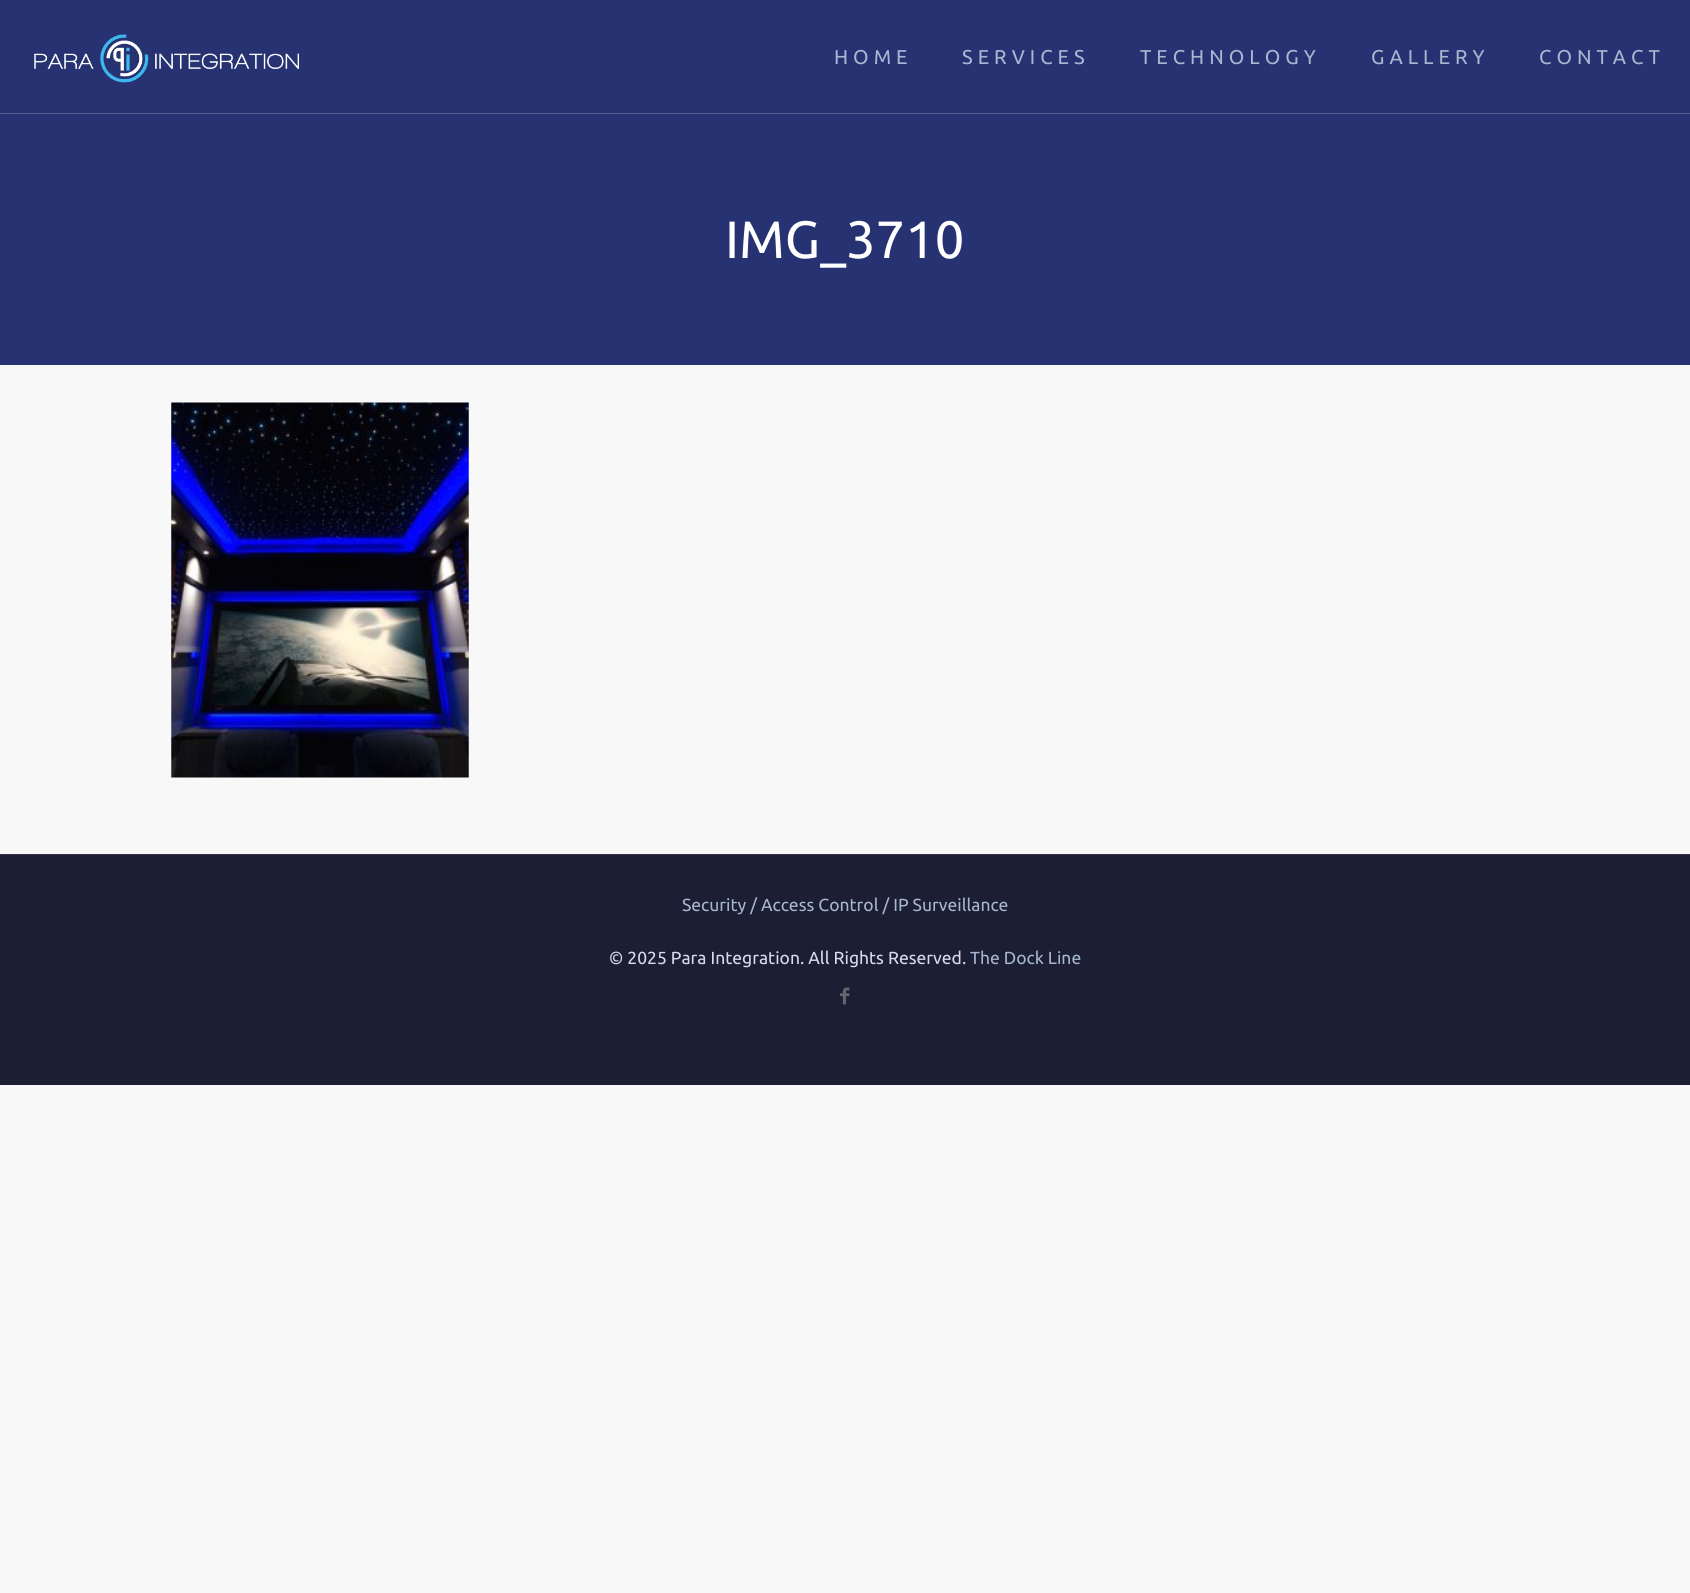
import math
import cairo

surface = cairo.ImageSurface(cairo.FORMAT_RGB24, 1690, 1593)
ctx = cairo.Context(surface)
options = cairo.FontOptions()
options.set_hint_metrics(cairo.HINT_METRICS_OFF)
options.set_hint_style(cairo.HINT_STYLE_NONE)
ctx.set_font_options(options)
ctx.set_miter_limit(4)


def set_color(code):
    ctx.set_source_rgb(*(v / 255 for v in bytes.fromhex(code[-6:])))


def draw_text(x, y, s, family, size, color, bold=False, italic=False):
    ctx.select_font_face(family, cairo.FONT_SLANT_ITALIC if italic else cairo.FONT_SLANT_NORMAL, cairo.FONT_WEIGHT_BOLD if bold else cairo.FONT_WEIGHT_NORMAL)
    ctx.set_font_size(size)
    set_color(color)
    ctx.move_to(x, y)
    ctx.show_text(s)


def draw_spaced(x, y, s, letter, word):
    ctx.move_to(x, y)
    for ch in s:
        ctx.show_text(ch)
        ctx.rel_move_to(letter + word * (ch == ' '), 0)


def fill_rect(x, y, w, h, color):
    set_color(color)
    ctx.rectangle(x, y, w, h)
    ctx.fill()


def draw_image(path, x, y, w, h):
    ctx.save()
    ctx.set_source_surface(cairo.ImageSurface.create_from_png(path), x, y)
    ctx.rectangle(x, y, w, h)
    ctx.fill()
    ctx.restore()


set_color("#f8f8f8")
ctx.paint()
fill_rect(0, 0, 1690, 365, "#263271")
fill_rect(0, 113, 1690, 1, "#515b8d")
draw_image("assets/img1.png", 34, 34, 265, 49)
ctx.select_font_face("Ubuntu")
ctx.set_font_size(20)
set_color("#a6b7d1")
draw_spaced(834, 64, "HOME", 5, 0)
draw_spaced(962, 64, "SERVICES", 5, 0)
draw_spaced(1140, 64, "TECHNOLOGY", 5, 0)
draw_spaced(1371, 64, "GALLERY", 5, 0)
draw_spaced(1539, 64, "CONTACT", 5, 0)
draw_text(725, 258, "IMG_3710", "Ubuntu", 52.5, "#ffffff")
draw_image("assets/img2.png", 171, 402, 298, 376)
fill_rect(0, 855, 1690, 230, "#1c1e33")
fill_rect(0, 854, 1690, 1, "#333547")
draw_text(682, 911, "Security / Access Control / IP Surveillance", "Ubuntu", 17.5, "#a6b7d1")
draw_text(609, 964, "© 2025 Para Integration. All Rights Reserved.", "Ubuntu", 17.5, "#d5ddea")
draw_text(970, 964, "The Dock Line", "Ubuntu", 17.5, "#a6b7d1")
draw_image("assets/img3.png", 840, 987, 10, 18)
surface.write_to_png("output.png")
